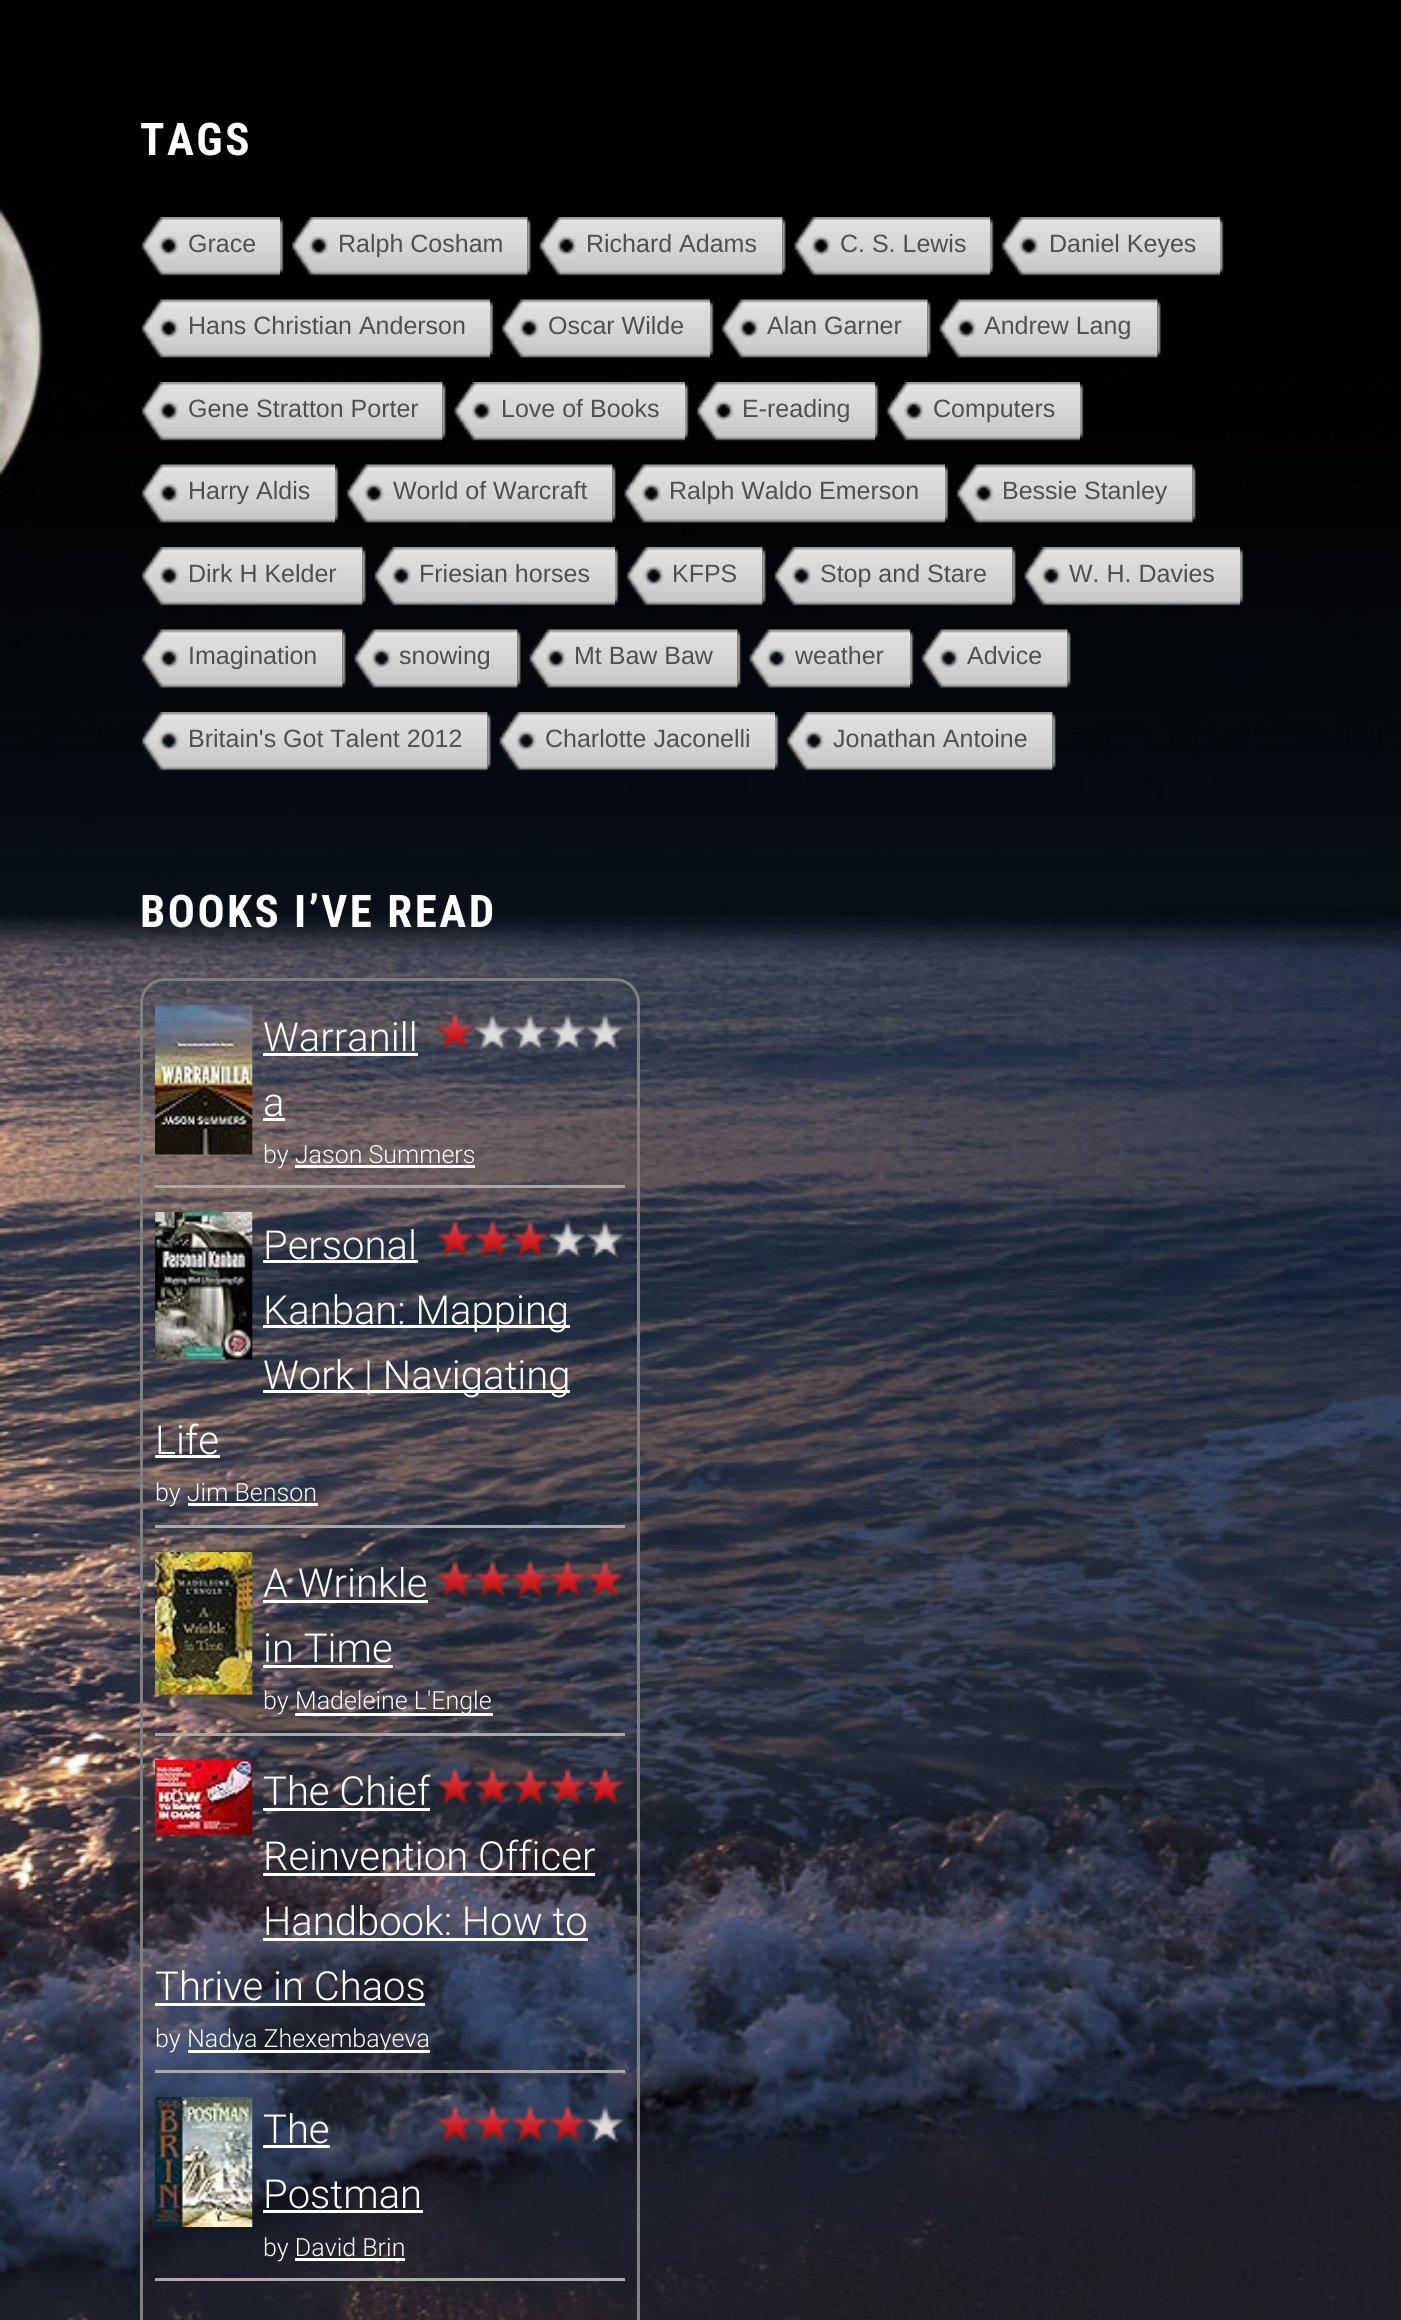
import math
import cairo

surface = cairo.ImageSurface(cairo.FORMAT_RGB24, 1401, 2320)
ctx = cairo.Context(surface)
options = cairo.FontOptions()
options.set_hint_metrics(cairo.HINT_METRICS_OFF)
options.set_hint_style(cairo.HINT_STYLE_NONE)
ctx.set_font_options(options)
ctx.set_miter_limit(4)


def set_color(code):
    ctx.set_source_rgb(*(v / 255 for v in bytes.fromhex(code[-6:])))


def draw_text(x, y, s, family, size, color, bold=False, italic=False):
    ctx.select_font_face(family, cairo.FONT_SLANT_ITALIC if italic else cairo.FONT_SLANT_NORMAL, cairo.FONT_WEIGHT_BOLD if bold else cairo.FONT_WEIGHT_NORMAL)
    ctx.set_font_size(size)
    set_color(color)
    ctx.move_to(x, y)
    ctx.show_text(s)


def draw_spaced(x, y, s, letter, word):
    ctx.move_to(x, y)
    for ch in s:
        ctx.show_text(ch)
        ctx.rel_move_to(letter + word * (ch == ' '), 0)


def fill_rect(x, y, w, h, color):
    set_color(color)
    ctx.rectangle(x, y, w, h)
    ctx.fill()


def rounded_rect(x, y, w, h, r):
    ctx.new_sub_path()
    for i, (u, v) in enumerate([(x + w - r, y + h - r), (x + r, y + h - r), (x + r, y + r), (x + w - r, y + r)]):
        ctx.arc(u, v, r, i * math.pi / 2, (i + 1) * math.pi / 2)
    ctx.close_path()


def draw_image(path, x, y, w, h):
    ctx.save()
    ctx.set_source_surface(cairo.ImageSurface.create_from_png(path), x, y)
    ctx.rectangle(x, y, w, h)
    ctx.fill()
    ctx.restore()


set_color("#000000")
ctx.paint()
ctx.select_font_face("Roboto Condensed", cairo.FONT_SLANT_NORMAL, cairo.FONT_WEIGHT_BOLD)
ctx.set_font_size(45)
set_color("#ffffff")
draw_spaced(140, 155, "TAGS", 2.5, 0)
draw_image("assets/img87.png", 0, 199, 1401, 2121)
draw_image("assets/img1.png", 141, 217, 139, 59)
draw_text(188, 252, "Grace", "Liberation Sans", 25, "#4f4f4f")
draw_image("assets/img2.png", 280, 218, 4, 56)
draw_image("assets/img3.png", 291, 217, 237, 59)
draw_text(338, 252, "Ralph Cosham", "Liberation Sans", 25, "#4f4f4f")
draw_image("assets/img4.png", 527, 219, 4, 54)
draw_image("assets/img5.png", 539, 217, 244, 59)
draw_text(586, 252, "Richard Adams", "Liberation Sans", 25, "#4f4f4f")
draw_image("assets/img4.png", 782, 219, 4, 54)
draw_image("assets/img6.png", 794, 217, 196, 59)
draw_text(840, 252, "C. S. Lewis", "Liberation Sans", 25, "#4f4f4f")
draw_image("assets/img2.png", 990, 218, 4, 56)
draw_image("assets/img7.png", 1001, 217, 219, 59)
draw_text(1049, 252, "Daniel Keyes", "Liberation Sans", 25, "#4f4f4f")
draw_image("assets/img8.png", 1220, 218, 4, 56)
draw_image("assets/img9.png", 141, 299, 349, 60)
draw_text(188, 334, "Hans Christian Anderson", "Liberation Sans", 25, "#4f4f4f")
draw_image("assets/img10.png", 490, 301, 4, 55)
draw_image("assets/img11.png", 501, 299, 209, 60)
draw_text(548, 334, "Oscar Wilde", "Liberation Sans", 25, "#4f4f4f")
draw_image("assets/img10.png", 710, 301, 4, 55)
draw_image("assets/img12.png", 721, 299, 207, 60)
draw_text(767, 334, "Alan Garner", "Liberation Sans", 25, "#4f4f4f")
draw_image("assets/img13.png", 927, 301, 4, 55)
draw_image("assets/img14.png", 939, 299, 219, 59)
draw_text(984, 334, "Andrew Lang", "Liberation Sans", 25, "#4f4f4f")
draw_image("assets/img13.png", 1157, 301, 4, 55)
draw_image("assets/img15.png", 141, 382, 302, 59)
draw_text(188, 417, "Gene Stratton Porter", "Liberation Sans", 25, "#4f4f4f")
draw_image("assets/img16.png", 442, 384, 4, 54)
draw_image("assets/img17.png", 454, 382, 231, 59)
draw_text(501, 417, "Love of Books", "Liberation Sans", 25, "#4f4f4f")
draw_image("assets/img18.png", 685, 384, 4, 54)
draw_image("assets/img19.png", 696, 382, 179, 59)
draw_text(742, 417, "E-reading", "Liberation Sans", 25, "#4f4f4f")
draw_image("assets/img20.png", 875, 384, 4, 54)
draw_image("assets/img21.png", 886, 382, 194, 59)
draw_text(933, 417, "Computers", "Liberation Sans", 25, "#4f4f4f")
draw_image("assets/img22.png", 1080, 384, 4, 54)
draw_image("assets/img23.png", 141, 464, 194, 59)
draw_text(188, 499, "Harry Aldis", "Liberation Sans", 25, "#4f4f4f")
draw_image("assets/img24.png", 335, 466, 4, 55)
draw_image("assets/img25.png", 346, 464, 267, 59)
draw_text(393, 499, "World of Warcraft", "Liberation Sans", 25, "#4f4f4f")
draw_image("assets/img26.png", 612, 466, 4, 55)
draw_image("assets/img27.png", 624, 464, 321, 59)
draw_text(669, 499, "Ralph Waldo Emerson", "Liberation Sans", 25, "#4f4f4f")
draw_image("assets/img28.png", 945, 466, 4, 55)
draw_image("assets/img29.png", 956, 464, 237, 59)
draw_text(1002, 499, "Bessie Stanley", "Liberation Sans", 25, "#4f4f4f")
draw_image("assets/img30.png", 1192, 466, 4, 55)
draw_image("assets/img31.png", 141, 547, 222, 59)
draw_text(188, 582, "Dirk H Kelder", "Liberation Sans", 25, "#4f4f4f")
draw_image("assets/img32.png", 362, 549, 4, 54)
draw_image("assets/img33.png", 374, 547, 241, 59)
draw_text(419, 582, "Friesian horses", "Liberation Sans", 25, "#4f4f4f")
draw_image("assets/img34.png", 615, 549, 4, 54)
draw_image("assets/img35.png", 626, 547, 137, 59)
draw_text(672, 582, "KFPS", "Liberation Sans", 25, "#4f4f4f")
draw_image("assets/img36.png", 762, 549, 4, 54)
draw_image("assets/img37.png", 774, 547, 239, 59)
draw_text(820, 582, "Stop and Stare", "Liberation Sans", 25, "#4f4f4f")
draw_image("assets/img38.png", 1012, 549, 4, 54)
draw_image("assets/img39.png", 1024, 547, 216, 59)
draw_text(1069, 582, "W. H. Davies", "Liberation Sans", 25, "#4f4f4f")
draw_image("assets/img40.png", 1240, 549, 4, 54)
draw_image("assets/img41.png", 141, 629, 202, 59)
draw_text(188, 664, "Imagination", "Liberation Sans", 25, "#4f4f4f")
draw_image("assets/img42.png", 342, 631, 4, 55)
draw_image("assets/img43.png", 354, 629, 164, 59)
draw_text(399, 664, "snowing", "Liberation Sans", 25, "#4f4f4f")
draw_image("assets/img44.png", 517, 631, 4, 55)
draw_image("assets/img45.png", 529, 629, 209, 59)
draw_text(574, 664, "Mt Baw Baw", "Liberation Sans", 25, "#4f4f4f")
draw_image("assets/img46.png", 737, 631, 4, 55)
draw_image("assets/img47.png", 749, 629, 161, 59)
draw_text(795, 664, "weather", "Liberation Sans", 25, "#4f4f4f")
draw_image("assets/img48.png", 910, 631, 4, 55)
draw_image("assets/img49.png", 921, 629, 147, 59)
draw_text(967, 664, "Advice", "Liberation Sans", 25, "#4f4f4f")
draw_image("assets/img50.png", 1067, 631, 4, 55)
draw_image("assets/img51.png", 141, 712, 347, 59)
draw_text(188, 747, "Britain's Got Talent 2012", "Liberation Sans", 25, "#4f4f4f")
draw_image("assets/img52.png", 487, 714, 4, 54)
draw_image("assets/img53.png", 499, 712, 276, 59)
draw_text(545, 747, "Charlotte Jaconelli", "Liberation Sans", 25, "#4f4f4f")
draw_image("assets/img54.png", 775, 714, 4, 54)
draw_image("assets/img55.png", 786, 712, 267, 59)
draw_text(833, 747, "Jonathan Antoine", "Liberation Sans", 25, "#4f4f4f")
draw_image("assets/img56.png", 1052, 714, 4, 54)
ctx.select_font_face("Roboto Condensed", cairo.FONT_SLANT_NORMAL, cairo.FONT_WEIGHT_BOLD)
ctx.set_font_size(45)
set_color("#ffffff")
draw_spaced(140, 927, "BOOKS I’VE READ", 2.5, 0)
rounded_rect(141.5, 979.5, 497, 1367, 23.5)
set_color("#808080")
ctx.set_line_width(3)
ctx.stroke()
fill_rect(155, 1185, 470, 3, "#aaaaaa")
draw_image("assets/img57.png", 155, 1004, 98, 151)
draw_text(263, 1051, "Warranill", "Roboto Light", 40, "#ffffff")
fill_rect(263, 1053, 155, 3, "#ffffff")
draw_text(263, 1116, "a", "Roboto Light", 40, "#ffffff")
fill_rect(263, 1118, 22, 3, "#ffffff")
draw_image("assets/img58.png", 437, 1012, 38, 38)
draw_image("assets/img59.png", 475, 1014, 37, 36)
draw_image("assets/img60.png", 512, 1014, 38, 36)
draw_image("assets/img61.png", 550, 1013, 37, 37)
draw_image("assets/img62.png", 587, 1014, 38, 36)
draw_text(263, 1163, "by Jason Summers", "Roboto Light", 25, "#ffffff")
fill_rect(295, 1165, 180, 3, "#ffffff")
fill_rect(155, 1525, 470, 3, "#aaaaaa")
draw_image("assets/img63.png", 155, 1212, 98, 148)
draw_image("assets/img64.png", 437, 1219, 38, 38)
draw_image("assets/img65.png", 475, 1219, 38, 38)
draw_image("assets/img66.png", 512, 1219, 38, 38)
draw_image("assets/img67.png", 550, 1220, 38, 37)
draw_image("assets/img68.png", 587, 1219, 38, 38)
draw_text(263, 1259, "Personal", "Roboto Light", 40, "#ffffff")
fill_rect(263, 1260, 155, 3, "#ffffff")
fill_rect(263, 1325, 307, 3, "#ffffff")
draw_text(263, 1324, "Kanban: Mapping", "Roboto Light", 40, "#ffffff")
fill_rect(263, 1390, 307, 3, "#ffffff")
draw_text(263, 1389, "Work | Navigating", "Roboto Light", 40, "#ffffff")
draw_text(155, 1454, "Life", "Roboto Light", 40, "#ffffff")
fill_rect(155, 1455, 65, 3, "#ffffff")
draw_text(155, 1501, "by Jim Benson", "Roboto Light", 25, "#ffffff")
fill_rect(188, 1503, 130, 3, "#ffffff")
fill_rect(155, 1733, 470, 3, "#aaaaaa")
draw_image("assets/img69.png", 155, 1552, 98, 143)
draw_text(263, 1597, "A Wrinkle", "Roboto Light", 40, "#ffffff")
fill_rect(263, 1600, 165, 3, "#ffffff")
draw_text(263, 1662, "in Time", "Roboto Light", 40, "#ffffff")
fill_rect(263, 1665, 130, 3, "#ffffff")
draw_image("assets/img70.png", 437, 1559, 38, 38)
draw_image("assets/img71.png", 475, 1559, 37, 38)
draw_image("assets/img72.png", 512, 1559, 38, 38)
draw_image("assets/img73.png", 550, 1559, 37, 38)
draw_image("assets/img74.png", 587, 1559, 38, 38)
draw_text(263, 1709, "by", "Roboto Light", 25, "#ffffff")
fill_rect(295, 1713, 198, 3, "#ffffff")
draw_text(295, 1709, "Madeleine L'Engle", "Roboto Light", 25, "#ffffff")
fill_rect(155, 2070, 470, 3, "#aaaaaa")
draw_image("assets/img75.png", 155, 1759, 98, 76)
draw_image("assets/img76.png", 437, 1767, 38, 38)
draw_image("assets/img77.png", 475, 1767, 37, 38)
draw_image("assets/img78.png", 512, 1767, 38, 38)
draw_image("assets/img79.png", 550, 1767, 37, 38)
draw_image("assets/img80.png", 587, 1767, 38, 38)
draw_text(263, 1805, "The Chief", "Roboto Light", 40, "#ffffff")
fill_rect(263, 1808, 167, 3, "#ffffff")
draw_text(263, 1870, "Reinvention Officer", "Roboto Light", 40, "#ffffff")
fill_rect(263, 1873, 332, 3, "#ffffff")
draw_text(263, 1935, "Handbook: How to", "Roboto Light", 40, "#ffffff")
fill_rect(263, 1938, 325, 3, "#ffffff")
draw_text(155, 2000, "Thrive in Chaos", "Roboto Light", 40, "#ffffff")
fill_rect(155, 2003, 270, 3, "#ffffff")
draw_text(155, 2047, "by", "Roboto Light", 25, "#ffffff")
fill_rect(188, 2050, 242, 3, "#ffffff")
draw_text(187, 2047, "Nadya Zhexembayeva", "Roboto Light", 25, "#ffffff")
fill_rect(155, 2278, 470, 3, "#aaaaaa")
draw_image("assets/img81.png", 155, 2097, 98, 130)
draw_text(263, 2143, "The", "Roboto Light", 40, "#ffffff")
fill_rect(263, 2145, 67, 3, "#ffffff")
draw_text(263, 2208, "Postman", "Roboto Light", 40, "#ffffff")
fill_rect(263, 2210, 160, 3, "#ffffff")
draw_image("assets/img82.png", 437, 2104, 38, 38)
draw_image("assets/img83.png", 475, 2104, 38, 38)
draw_image("assets/img84.png", 512, 2104, 38, 38)
draw_image("assets/img85.png", 550, 2104, 38, 38)
draw_image("assets/img86.png", 587, 2105, 38, 37)
draw_text(263, 2256, "by David Brin", "Roboto Light", 25, "#ffffff")
fill_rect(295, 2258, 110, 3, "#ffffff")
surface.write_to_png("output.png")
